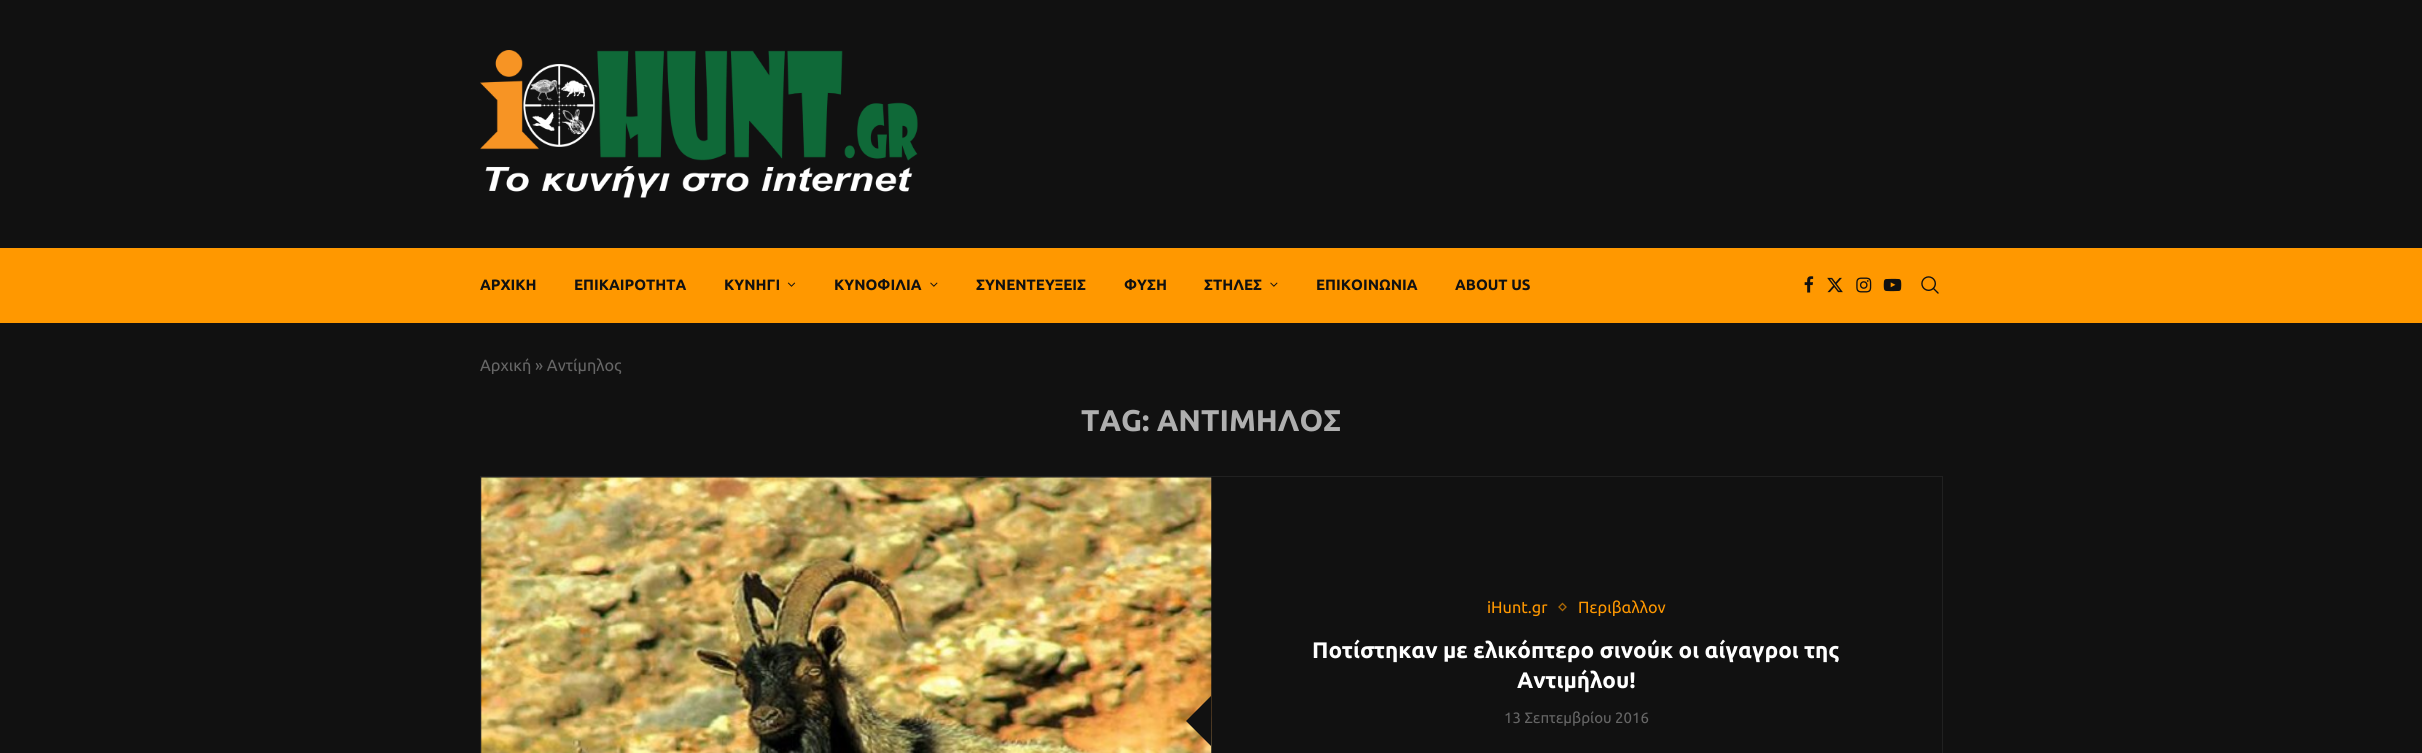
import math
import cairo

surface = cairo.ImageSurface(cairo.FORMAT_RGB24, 2422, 753)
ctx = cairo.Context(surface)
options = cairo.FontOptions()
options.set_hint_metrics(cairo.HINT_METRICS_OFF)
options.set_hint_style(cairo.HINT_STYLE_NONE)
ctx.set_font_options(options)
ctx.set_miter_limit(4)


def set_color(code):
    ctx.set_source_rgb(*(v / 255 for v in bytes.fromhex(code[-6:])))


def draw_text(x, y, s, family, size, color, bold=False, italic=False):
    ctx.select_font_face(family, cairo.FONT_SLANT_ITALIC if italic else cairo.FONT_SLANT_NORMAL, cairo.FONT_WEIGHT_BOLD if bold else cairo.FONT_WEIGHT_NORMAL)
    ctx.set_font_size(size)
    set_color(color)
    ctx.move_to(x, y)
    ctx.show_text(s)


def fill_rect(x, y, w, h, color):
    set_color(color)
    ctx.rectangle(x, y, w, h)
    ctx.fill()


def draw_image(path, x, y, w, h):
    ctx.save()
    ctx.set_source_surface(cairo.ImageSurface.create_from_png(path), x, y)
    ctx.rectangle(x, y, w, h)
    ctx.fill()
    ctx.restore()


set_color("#111111")
ctx.paint()
draw_image("assets/img1.png", 480, 50, 438, 148)
fill_rect(0, 248, 2422, 75, "#ff9800")
draw_text(480, 290, "ΑΡΧΙΚΗ", "Ubuntu", 15, "#111111", bold=True)
draw_text(574, 290, "ΕΠΙΚΑΙΡΟΤΗΤΑ", "Ubuntu", 15, "#111111", bold=True)
draw_text(724, 290, "ΚΥΝΗΓΙ", "Ubuntu", 15, "#111111", bold=True)
draw_image("assets/img2.png", 787, 282, 9, 5)
draw_text(834, 290, "ΚΥΝΟΦΙΛΙΑ", "Ubuntu", 15, "#111111", bold=True)
draw_image("assets/img3.png", 930, 282, 8, 5)
draw_text(976, 290, "ΣΥΝΕΝΤΕΥΞΕΙΣ", "Ubuntu", 15, "#111111", bold=True)
draw_text(1124, 290, "ΦΥΣΗ", "Ubuntu", 15, "#111111", bold=True)
draw_text(1204, 290, "ΣΤΗΛΕΣ", "Ubuntu", 15, "#111111", bold=True)
draw_image("assets/img4.png", 1270, 282, 8, 5)
draw_text(1316, 290, "ΕΠΙΚΟΙΝΩΝΙΑ", "Ubuntu", 15, "#111111", bold=True)
draw_text(1455, 290, "ABOUT US", "Ubuntu", 15, "#111111", bold=True)
draw_image("assets/img5.png", 1804, 276, 10, 17)
draw_image("assets/img6.png", 1827, 277, 16, 16)
draw_image("assets/img7.png", 1856, 277, 16, 16)
draw_image("assets/img8.png", 1883, 278, 19, 14)
draw_image("assets/img9.png", 1921, 276, 18, 18)
draw_text(480, 371, "Αρχική » Αντίμηλος", "Ubuntu", 16.25, "#666666")
draw_text(1081, 431, "TAG: ΑΝΤΙΜΗΛΟΣ", "Ubuntu", 30, "#afafaf", bold=True)
ctx.rectangle(480.5, 476.5, 1462, 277)
set_color("#212121")
ctx.set_line_width(1)
ctx.stroke()
draw_image("assets/img10.png", 481, 477, 731, 276)
set_color("#111111")
ctx.new_path()
ctx.move_to(1211, 696)
ctx.line_to(1211, 746)
ctx.line_to(1186, 721)
ctx.close_path()
ctx.fill()
draw_text(1487, 613, "iHunt.gr", "Ubuntu", 16.25, "#ff9800")
ctx.new_path()
ctx.move_to(1562.5, 603.5)
ctx.line_to(1566, 607)
ctx.line_to(1562.5, 610.5)
ctx.line_to(1559, 607)
ctx.close_path()
set_color("#ac6906")
ctx.set_line_width(1.3)
ctx.stroke()
draw_text(1578, 613, "Περιβαλλον", "Ubuntu", 16.25, "#ff9800")
draw_text(1312, 658, "Ποτίστηκαν με ελικόπτερο σινούκ οι αίγαγροι της", "Ubuntu", 22.5, "#ffffff", bold=True)
draw_text(1517, 688, "Αντιμήλου!", "Ubuntu", 22.5, "#ffffff", bold=True)
draw_text(1504, 723, "13 Σεπτεμβρίου 2016", "Ubuntu", 15, "#666666")
surface.write_to_png("output.png")
